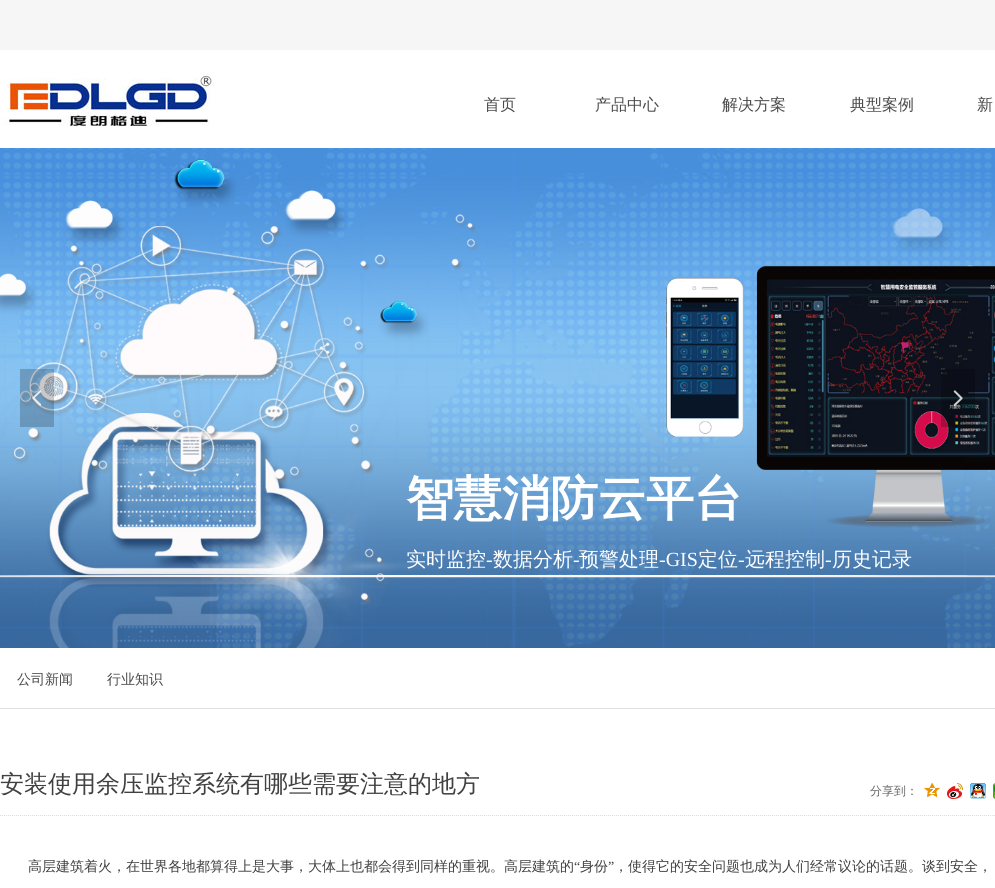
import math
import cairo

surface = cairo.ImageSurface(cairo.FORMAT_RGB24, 995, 888)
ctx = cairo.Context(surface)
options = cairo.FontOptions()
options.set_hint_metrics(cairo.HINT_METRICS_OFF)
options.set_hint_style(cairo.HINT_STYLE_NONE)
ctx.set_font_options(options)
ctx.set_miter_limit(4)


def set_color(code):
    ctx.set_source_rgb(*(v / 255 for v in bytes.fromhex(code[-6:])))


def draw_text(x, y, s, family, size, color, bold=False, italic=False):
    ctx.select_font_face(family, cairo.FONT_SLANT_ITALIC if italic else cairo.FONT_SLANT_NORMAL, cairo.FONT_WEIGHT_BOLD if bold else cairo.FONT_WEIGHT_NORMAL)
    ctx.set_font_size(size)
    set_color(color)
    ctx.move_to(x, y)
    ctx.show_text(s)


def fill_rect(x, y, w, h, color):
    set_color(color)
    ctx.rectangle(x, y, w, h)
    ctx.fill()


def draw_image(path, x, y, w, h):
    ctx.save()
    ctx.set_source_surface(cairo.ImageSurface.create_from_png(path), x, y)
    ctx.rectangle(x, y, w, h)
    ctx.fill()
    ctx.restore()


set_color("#ffffff")
ctx.paint()
fill_rect(0, 0, 995, 50, "#f6f6f6")
draw_image("assets/img1.png", 2, 73, 212, 53)
draw_text(484, 110, "首页", "WenQuanYi Zen Hei Medium", 16, "#4a4a4a")
draw_text(595, 110, "产品中心", "WenQuanYi Zen Hei Medium", 16, "#4a4a4a")
draw_text(722, 110, "解决方案", "WenQuanYi Zen Hei Medium", 16, "#4a4a4a")
draw_text(850, 110, "典型案例", "WenQuanYi Zen Hei Medium", 16, "#4a4a4a")
draw_text(977, 110, "新", "WenQuanYi Zen Hei Medium", 16, "#4a4a4a")
draw_image("assets/img4.png", 0, 148, 995, 500)
ctx.set_source_rgba(0, 0, 0, 0.2)
ctx.rectangle(20, 369, 34, 58)
ctx.fill()
draw_image("assets/img2.png", 32, 390, 10, 16)
ctx.rectangle(941, 369, 34, 58)
ctx.fill()
draw_image("assets/img3.png", 953, 390, 10, 16)
draw_text(406, 515, "智慧消防云平台", "WenQuanYi Zen Hei", 48, "#ffffff", bold=True)
draw_text(406, 566, "实时监控", "WenQuanYi Zen Hei Medium", 20, "#ffffff")
draw_text(486, 566, "-", "Liberation Serif", 20, "#ffffff")
draw_text(493, 566, "数据分析", "WenQuanYi Zen Hei Medium", 20, "#ffffff")
draw_text(573, 566, "-", "Liberation Serif", 20, "#ffffff")
draw_text(579, 566, "预警处理", "WenQuanYi Zen Hei Medium", 20, "#ffffff")
draw_text(659, 566, "-GIS", "Liberation Serif", 20, "#ffffff")
draw_text(698, 566, "定位", "WenQuanYi Zen Hei Medium", 20, "#ffffff")
draw_text(738, 566, "-", "Liberation Serif", 20, "#ffffff")
draw_text(745, 566, "远程控制", "WenQuanYi Zen Hei Medium", 20, "#ffffff")
draw_text(825, 566, "-", "Liberation Serif", 20, "#ffffff")
draw_text(832, 566, "历史记录", "WenQuanYi Zen Hei Medium", 20, "#ffffff")
draw_text(17, 684, "公司新闻", "WenQuanYi Zen Hei Medium", 14, "#4a4a4a")
draw_text(107, 684, "行业知识", "WenQuanYi Zen Hei Medium", 14, "#4a4a4a")
fill_rect(0, 708, 995, 1, "#e0e0e0")
draw_text(0, 792, "安装使用余压监控系统有哪些需要注意的地方", "WenQuanYi Zen Hei Medium", 24, "#404040")
draw_text(870, 795, "分享到：", "WenQuanYi Zen Hei Medium", 12, "#666666")
draw_image("assets/img5.png", 924, 783, 16, 14)
draw_image("assets/img6.png", 947, 783, 16, 16)
draw_image("assets/img7.png", 970, 783, 16, 16)
draw_image("assets/img8.png", 993, 783, 2, 16)
ctx.new_path()
ctx.move_to(0, 815.5)
ctx.line_to(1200, 815.5)
set_color("#dddddd")
ctx.set_line_width(1)
ctx.set_dash([1, 1])
ctx.stroke()
draw_text(28, 871, "高层建筑着火，在世界各地都算得上是大事，大体上也都会得到同样的重视。高层建筑的", "WenQuanYi Zen Hei Medium", 14, "#404040")
draw_text(574, 871, "“", "Liberation Serif", 14, "#404040")
draw_text(580, 871, "身份", "WenQuanYi Zen Hei Medium", 14, "#404040")
draw_text(608, 871, "”", "Liberation Serif", 14, "#404040")
draw_text(614, 871, "，使得它的安全问题也成为人们经常议论的话题。谈到安全，", "WenQuanYi Zen Hei Medium", 14, "#404040")
surface.write_to_png("output.png")
